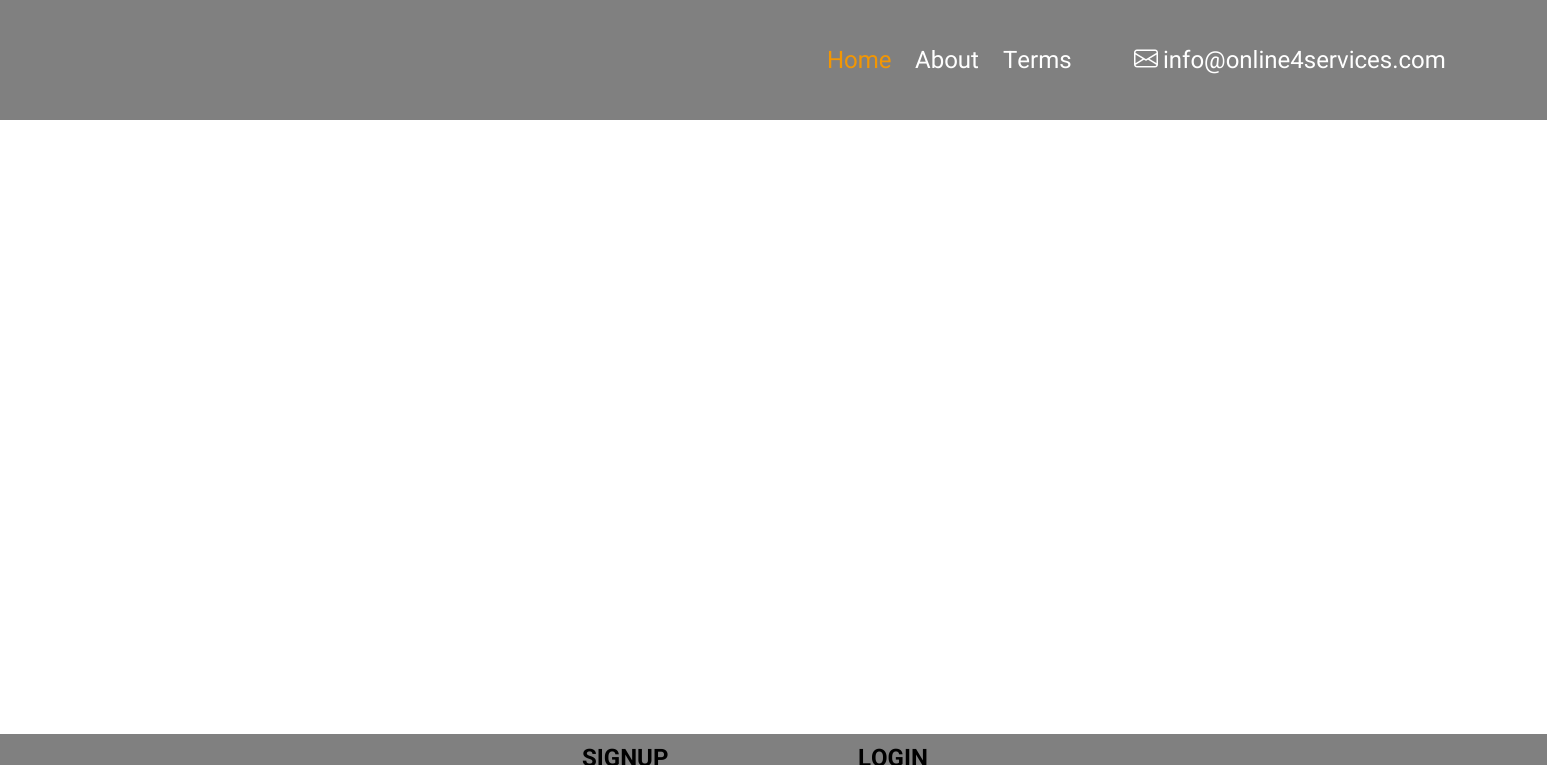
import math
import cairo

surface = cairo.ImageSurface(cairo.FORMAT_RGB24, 1547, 765)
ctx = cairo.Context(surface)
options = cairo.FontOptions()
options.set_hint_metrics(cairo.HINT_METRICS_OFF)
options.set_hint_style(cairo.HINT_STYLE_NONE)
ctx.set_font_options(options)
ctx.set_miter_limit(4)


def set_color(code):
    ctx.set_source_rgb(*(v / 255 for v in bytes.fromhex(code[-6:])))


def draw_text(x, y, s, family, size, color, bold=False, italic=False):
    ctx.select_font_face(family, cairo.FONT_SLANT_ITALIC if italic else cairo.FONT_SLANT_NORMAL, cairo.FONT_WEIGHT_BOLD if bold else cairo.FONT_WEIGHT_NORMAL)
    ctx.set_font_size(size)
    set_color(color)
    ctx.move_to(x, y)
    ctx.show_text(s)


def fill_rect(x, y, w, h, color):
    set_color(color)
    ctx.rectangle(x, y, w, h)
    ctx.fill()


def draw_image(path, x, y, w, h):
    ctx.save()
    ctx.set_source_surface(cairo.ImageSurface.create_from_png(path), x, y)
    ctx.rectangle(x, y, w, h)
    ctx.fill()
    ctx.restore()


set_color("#ffffff")
ctx.paint()
fill_rect(0, 734, 1547, 31, "#808080")
fill_rect(0, 0, 1547, 120, "#808080")
draw_text(827, 68, "Home", "Roboto", 24, "#f29603")
draw_text(915, 68, "About", "Roboto", 24, "#ffffff")
draw_text(1003, 68, "Terms", "Roboto", 24, "#ffffff")
draw_image("assets/img1.png", 1134, 49, 24, 19)
draw_text(1163, 68, "info@online4services.com", "Roboto", 24, "#ffffff")
draw_text(582, 766, "SIGNUP", "Roboto", 24, "#000000", bold=True)
draw_text(858, 766, "LOGIN", "Roboto", 24, "#000000", bold=True)
surface.write_to_png("output.png")
